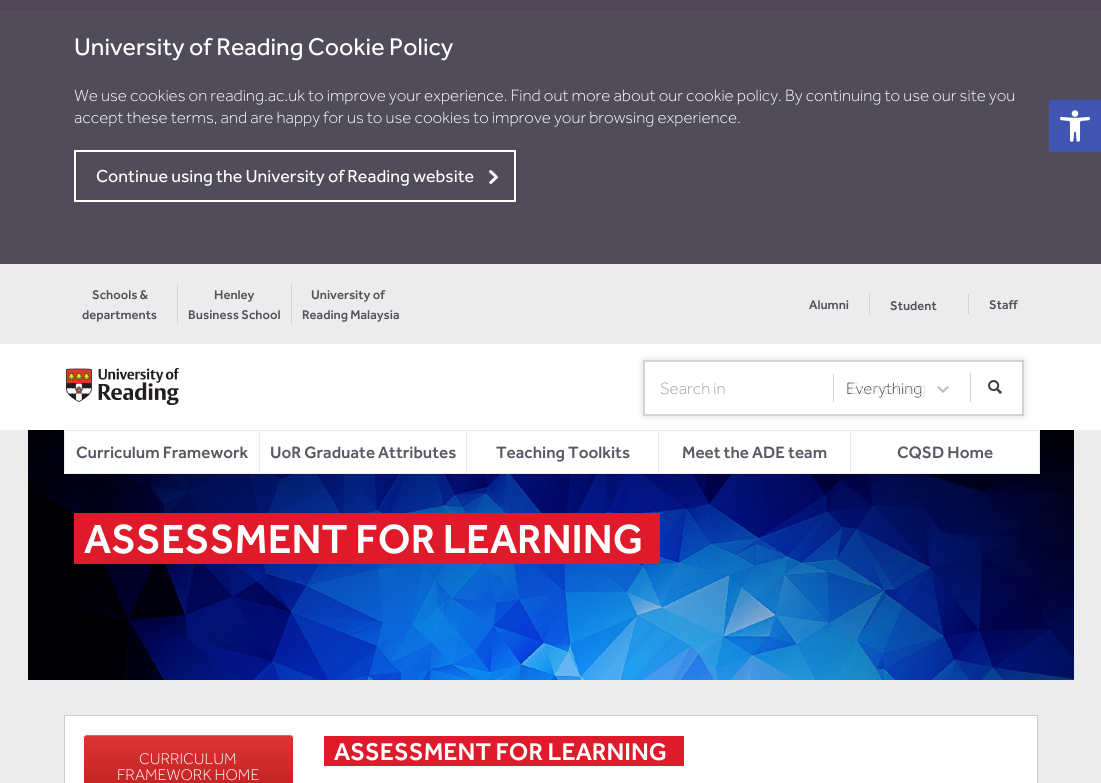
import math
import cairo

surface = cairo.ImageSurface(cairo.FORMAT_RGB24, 1101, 783)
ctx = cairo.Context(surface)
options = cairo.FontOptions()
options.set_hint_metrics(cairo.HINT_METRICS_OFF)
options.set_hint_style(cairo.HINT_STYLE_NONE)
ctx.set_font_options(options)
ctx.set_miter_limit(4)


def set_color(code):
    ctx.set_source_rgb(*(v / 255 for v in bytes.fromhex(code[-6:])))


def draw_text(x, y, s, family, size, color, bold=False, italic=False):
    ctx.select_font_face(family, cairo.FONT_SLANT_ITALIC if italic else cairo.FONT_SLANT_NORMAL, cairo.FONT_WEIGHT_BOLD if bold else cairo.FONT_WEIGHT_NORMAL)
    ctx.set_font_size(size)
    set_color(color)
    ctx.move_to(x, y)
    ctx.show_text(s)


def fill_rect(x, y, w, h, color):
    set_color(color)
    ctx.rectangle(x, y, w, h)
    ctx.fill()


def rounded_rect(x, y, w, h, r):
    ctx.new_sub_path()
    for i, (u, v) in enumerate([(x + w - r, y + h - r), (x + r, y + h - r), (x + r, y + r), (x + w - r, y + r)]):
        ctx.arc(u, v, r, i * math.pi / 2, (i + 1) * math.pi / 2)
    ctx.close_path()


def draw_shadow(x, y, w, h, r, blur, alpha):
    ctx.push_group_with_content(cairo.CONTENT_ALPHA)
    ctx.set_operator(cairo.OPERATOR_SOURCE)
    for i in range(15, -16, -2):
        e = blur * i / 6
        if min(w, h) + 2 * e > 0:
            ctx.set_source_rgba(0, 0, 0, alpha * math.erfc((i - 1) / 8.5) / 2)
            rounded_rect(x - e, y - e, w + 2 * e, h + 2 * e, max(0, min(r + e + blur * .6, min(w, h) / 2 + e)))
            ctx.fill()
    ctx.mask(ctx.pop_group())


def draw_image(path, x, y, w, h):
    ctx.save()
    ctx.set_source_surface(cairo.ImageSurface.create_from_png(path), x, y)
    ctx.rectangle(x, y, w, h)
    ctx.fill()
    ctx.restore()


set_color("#ececec")
ctx.paint()
fill_rect(0, 10, 1101, 254, "#504c5a")
fill_rect(0, 0, 1101, 10, "#4f4659")
draw_text(74, 55, "University of Reading Cookie Policy", "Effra", 25, "#ffffff")
draw_text(74, 101, "We use cookies on reading.ac.uk to improve your experience. Find out more about our cookie policy. By continuing to use our site you", "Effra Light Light", 17, "#ffffff")
draw_text(74, 123, "accept these terms, and are happy for us to use cookies to improve your browsing experience.", "Effra Light Light", 17, "#ffffff")
ctx.rectangle(75, 151, 440, 50)
ctx.stroke()
draw_text(96, 182, "Continue using the University of Reading website", "Effra", 17.9, "#ffffff")
draw_image("assets/img1.png", 489, 170, 9, 14)
draw_text(92, 299, "Schools &", "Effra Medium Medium", 13, "#50535a")
draw_text(82, 319, "departments", "Effra Medium Medium", 13, "#50535a")
fill_rect(177, 284, 1, 40, "#d3d3d3")
draw_text(214, 299, "Henley", "Effra Medium Medium", 13, "#50535a")
draw_text(188, 319, "Business School", "Effra Medium Medium", 13, "#50535a")
fill_rect(291, 284, 1, 40, "#d3d3d3")
draw_text(311, 299, "University of", "Effra Medium Medium", 13, "#50535a")
draw_text(302, 319, "Reading Malaysia", "Effra Medium Medium", 13, "#50535a")
draw_text(809, 309, "Alumni", "Effra Medium Medium", 13, "#50535a")
fill_rect(869, 294, 1, 20, "#d3d3d3")
draw_text(890, 310, "Student", "Effra Medium Medium", 13, "#50535a")
fill_rect(968, 294, 1, 20, "#d3d3d3")
draw_text(989, 309, "Staff", "Effra Medium Medium", 13, "#50535a")
fill_rect(0, 344, 1101, 86, "#ffffff")
draw_image("assets/img2.png", 66, 368, 113, 37)
ctx.save()
ctx.set_fill_rule(cairo.FILL_RULE_EVEN_ODD)
ctx.new_path()
ctx.move_to(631, 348)
ctx.line_to(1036, 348)
ctx.line_to(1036, 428)
ctx.line_to(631, 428)
ctx.close_path()
ctx.move_to(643, 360)
ctx.line_to(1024, 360)
ctx.line_to(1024, 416)
ctx.line_to(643, 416)
ctx.close_path()
ctx.clip()
set_color("#41444c")
draw_shadow(643, 360, 381, 56, 0, 3.5, 0.2)
ctx.restore()
ctx.rectangle(644, 361, 379, 54)
set_color("#d2d2d2")
ctx.stroke()
draw_text(660, 394, "Search in", "Effra Light Light", 17, "#a3a3a3")
fill_rect(833, 374, 1, 28, "#d2d2d2")
draw_text(846, 394, "Everything", "Effra Light Light", 17, "#41444d")
draw_image("assets/img3.png", 937, 386, 12, 7)
draw_text(850, 394, "Everything", "Effra Light Light", 17, "#dcddde")
fill_rect(970, 373, 1, 29, "#d2d2d2")
draw_image("assets/img4.png", 988, 380, 14, 14)
draw_image("assets/img5.png", 28, 430, 1046, 250)
set_color("#ffffff")
ctx.rectangle(64.5, 430.5, 975, 43)
ctx.fill_preserve()
set_color("#ececec")
ctx.set_line_width(1)
ctx.stroke()
draw_text(76, 458, "Curriculum Framework", "Effra Medium Medium", 17, "#5c5765")
fill_rect(259, 431, 1, 42, "#ececec")
draw_text(270, 458, "UoR Graduate Attributes", "Effra Medium Medium", 17, "#5c5765")
fill_rect(466, 431, 1, 42, "#ececec")
draw_text(496, 458, "Teaching Toolkits", "Effra Medium Medium", 17, "#5c5765")
fill_rect(658, 431, 1, 42, "#ececec")
draw_text(682, 458, "Meet the ADE team", "Effra Medium Medium", 17, "#5c5765")
fill_rect(850, 431, 1, 42, "#ececec")
draw_text(897, 458, "CQSD Home", "Effra Medium Medium", 17, "#5c5765")
fill_rect(74, 513, 586, 51, "#df1b2b")
draw_text(84, 553, "ASSESSMENT FOR LEARNING", "Effra Medium Medium", 42, "#ffffff")
ctx.rectangle(64.5, 715.5, 973, 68)
ctx.fill_preserve()
set_color("#cccccc")
ctx.stroke()
set_color("#000000")
draw_shadow(83, 735, 211, 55, 4, 1, 0.07)
ctx.save()
rounded_rect(83, 734, 211, 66, 4)
ctx.clip()
gradient = cairo.LinearGradient(84, 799, 84, 735)
gradient.add_color_stop_rgba(0, 0.741, 0.125, 0.125, 1)
gradient.add_color_stop_rgba(1, 0.867, 0.2, 0.2, 1)
ctx.set_source(gradient)
ctx.rectangle(83, 735, 211, 48)
ctx.fill()
ctx.restore()
set_color("#e45c5c")
ctx.new_path()
ctx.move_to(87, 736)
ctx.line_to(290, 736)
ctx.curve_to(292, 736, 293, 737, 293, 739)
ctx.line_to(293, 738)
ctx.curve_to(293, 736, 292, 735, 290, 735)
ctx.line_to(87, 735)
ctx.curve_to(85, 735, 84, 736, 84, 738)
ctx.line_to(84, 739)
ctx.curve_to(84, 737, 85, 736, 87, 736)
ctx.close_path()
ctx.fill()
rounded_rect(83.5, 734.5, 210, 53, 3.5)
set_color("#ffffff")
ctx.stroke()
draw_text(139, 764, "CURRICULUM", "Effra Light Light", 16, "#ffffff")
draw_text(117, 780, "FRAMEWORK HOME", "Effra Light Light", 16, "#ffffff")
fill_rect(324, 736, 360, 30, "#df1b2b")
draw_text(334, 760, "ASSESSMENT FOR LEARNING", "Effra Medium Medium", 25, "#ffffff")
fill_rect(1049, 100, 52, 52, "#4054b2")
draw_image("assets/img6.png", 1060, 110, 30, 32)
surface.write_to_png("output.png")
